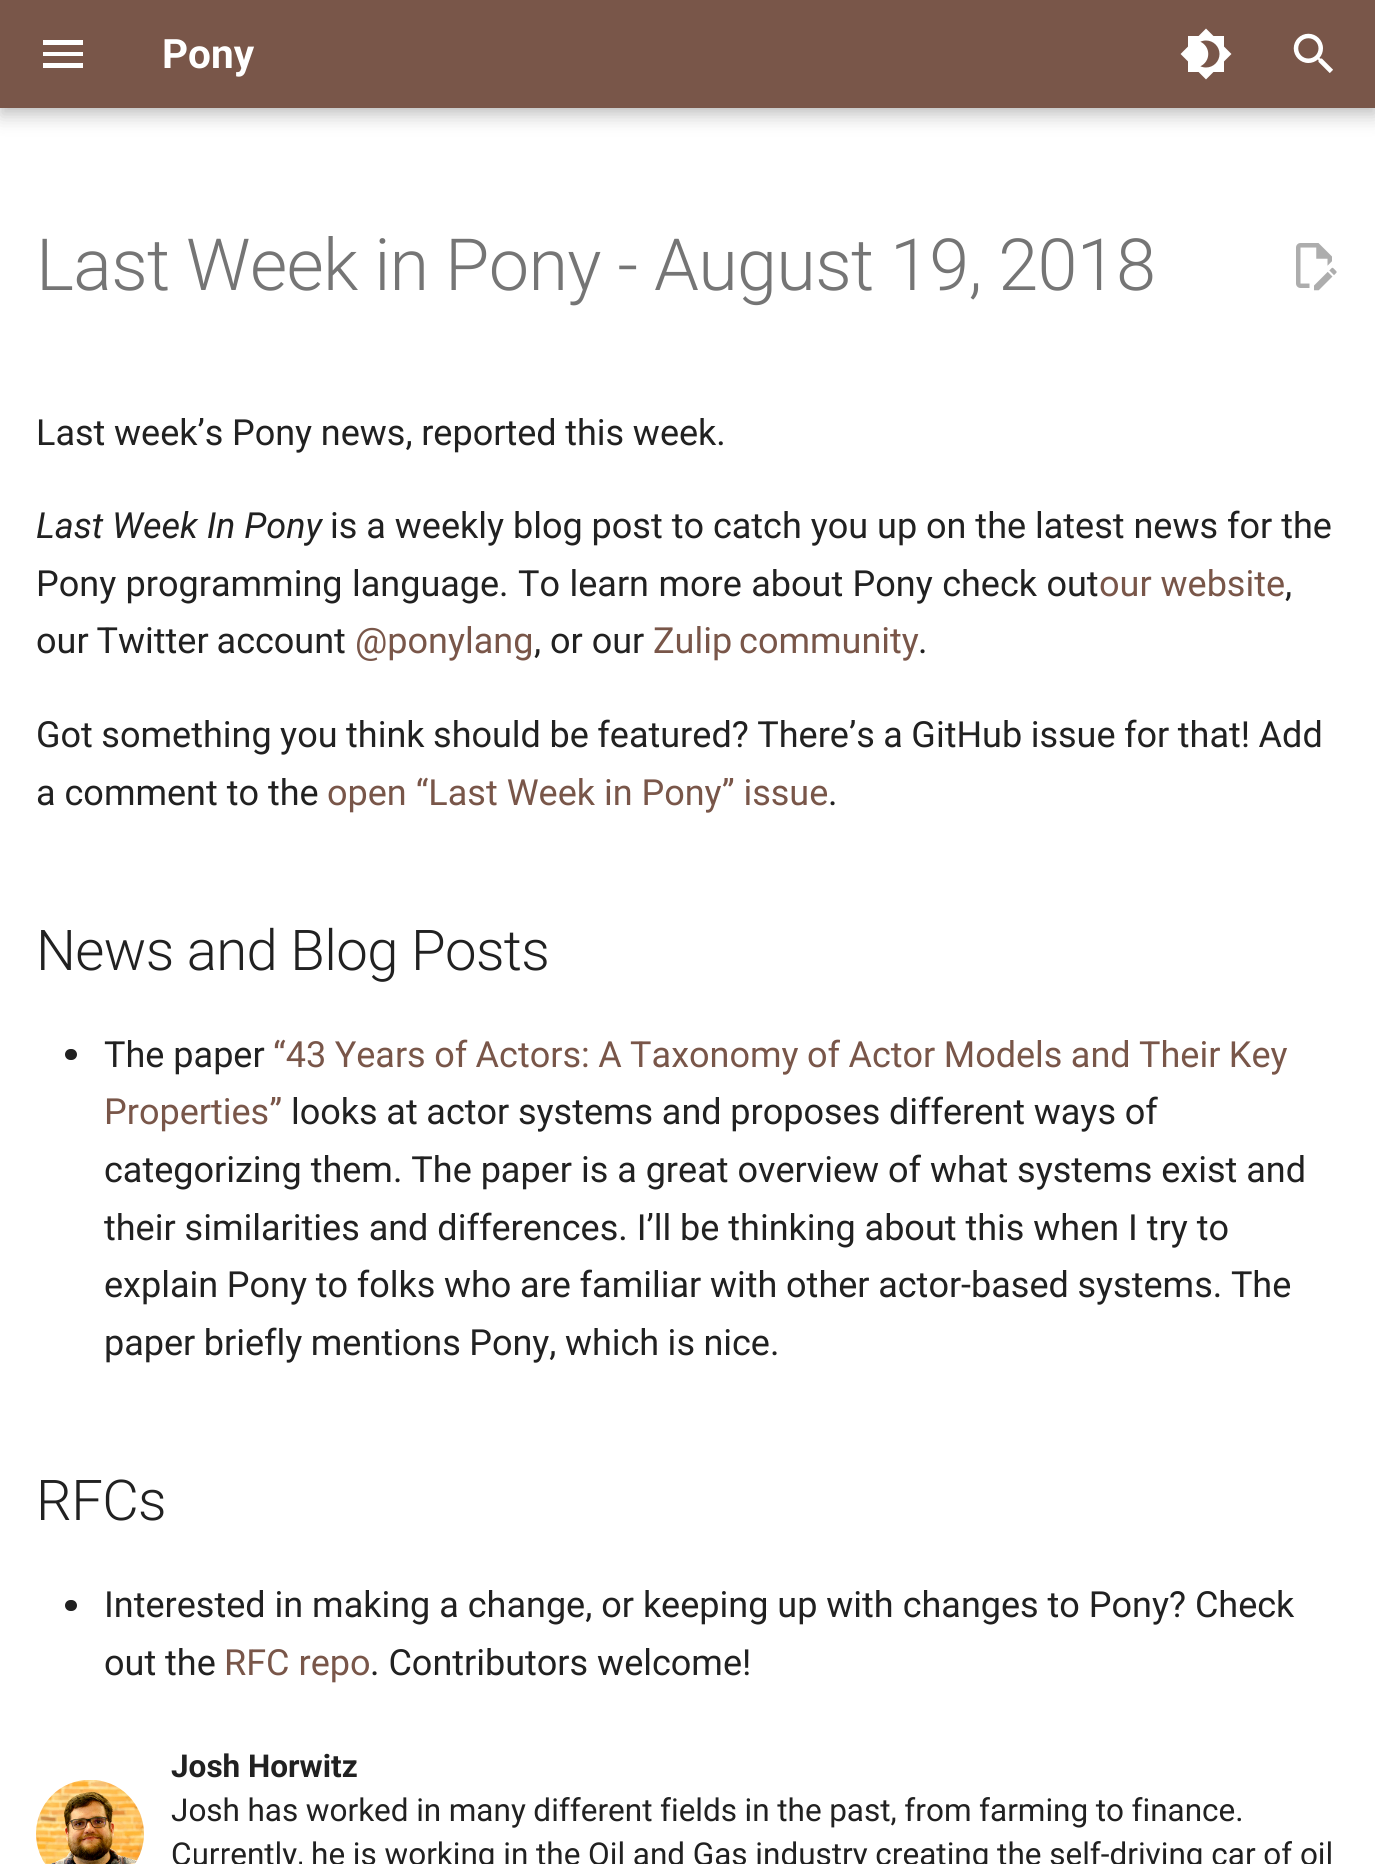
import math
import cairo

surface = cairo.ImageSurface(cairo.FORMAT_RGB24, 1375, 1864)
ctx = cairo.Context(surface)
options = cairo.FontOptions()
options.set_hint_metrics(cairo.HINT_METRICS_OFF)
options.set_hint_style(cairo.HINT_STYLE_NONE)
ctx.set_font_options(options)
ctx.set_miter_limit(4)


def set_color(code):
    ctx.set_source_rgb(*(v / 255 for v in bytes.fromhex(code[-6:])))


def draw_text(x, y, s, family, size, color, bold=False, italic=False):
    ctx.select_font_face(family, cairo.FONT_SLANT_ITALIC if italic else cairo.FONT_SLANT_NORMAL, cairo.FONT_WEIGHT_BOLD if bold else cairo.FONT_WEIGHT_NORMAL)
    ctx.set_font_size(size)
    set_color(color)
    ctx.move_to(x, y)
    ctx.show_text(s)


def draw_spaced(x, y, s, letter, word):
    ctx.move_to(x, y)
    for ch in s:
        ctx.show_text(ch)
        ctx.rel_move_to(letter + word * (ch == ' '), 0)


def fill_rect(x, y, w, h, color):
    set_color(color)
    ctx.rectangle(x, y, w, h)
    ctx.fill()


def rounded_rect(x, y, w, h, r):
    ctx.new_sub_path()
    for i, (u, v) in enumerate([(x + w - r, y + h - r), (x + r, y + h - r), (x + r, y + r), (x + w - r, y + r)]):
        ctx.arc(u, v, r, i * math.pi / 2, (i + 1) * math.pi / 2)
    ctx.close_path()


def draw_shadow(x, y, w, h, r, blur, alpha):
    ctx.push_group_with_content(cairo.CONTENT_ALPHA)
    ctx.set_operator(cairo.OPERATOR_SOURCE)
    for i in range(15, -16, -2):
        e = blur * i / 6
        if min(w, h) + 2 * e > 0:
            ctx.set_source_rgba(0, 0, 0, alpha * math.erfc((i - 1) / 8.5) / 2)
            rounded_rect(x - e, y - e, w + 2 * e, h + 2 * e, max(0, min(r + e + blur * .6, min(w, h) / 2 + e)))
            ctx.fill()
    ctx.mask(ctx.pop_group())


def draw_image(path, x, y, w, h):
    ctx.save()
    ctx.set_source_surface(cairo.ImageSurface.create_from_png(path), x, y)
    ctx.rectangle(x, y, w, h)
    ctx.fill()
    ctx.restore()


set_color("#ffffff")
ctx.paint()
set_color("#000000")
draw_shadow(0, 9, 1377, 108, 0, 9, 0.2)
draw_shadow(0, 0, 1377, 108, 0, 4.5, 0.1)
fill_rect(0, 0, 1375, 108, "#795649")
set_color("#ffffff")
ctx.new_path()
ctx.move_to(43, 40)
ctx.line_to(83, 40)
ctx.line_to(83, 45)
ctx.line_to(43, 45)
ctx.close_path()
ctx.move_to(43, 52)
ctx.line_to(83, 52)
ctx.line_to(83, 56)
ctx.line_to(43, 56)
ctx.close_path()
ctx.move_to(43, 63)
ctx.line_to(83, 63)
ctx.line_to(83, 68)
ctx.line_to(43, 68)
ctx.close_path()
ctx.fill()
draw_text(162, 68, "Pony", "Roboto", 40.5, "#ffffff", bold=True)
draw_image("assets/img1.png", 1180, 28, 52, 52)
draw_image("assets/img2.png", 1293, 33, 40, 40)
ctx.select_font_face("Roboto Light")
ctx.set_font_size(72)
set_color("#757575")
draw_spaced(36, 290, "Last Week in Pony - August 19, 2018", -0.7, -0.25)
draw_image("assets/img3.png", 1296, 243, 41, 48)
ctx.select_font_face("Roboto")
ctx.set_font_size(36)
set_color("#212121")
draw_spaced(36, 445, "Last week’s Pony news, reported this week.", 0, -0.25)
draw_text(36, 538, "Last Week In Pony", "Roboto", 36, "#212121", italic=True)
draw_text(330, 538, "is a weekly blog post to catch you up on the latest news for the", "Roboto", 36, "#212121")
draw_spaced(36, 596, "Pony programming language. To learn more about Pony check out", 0, 0.5)
draw_text(1099, 596, "our website", "Roboto", 36, "#795649")
draw_text(1285, 596, ",", "Roboto", 36, "#212121")
draw_spaced(36, 653, "our Twitter account", 0, -1)
draw_text(355, 653, "@ponylang", "Roboto", 36, "#795649")
draw_text(534, 653, ", or our", "Roboto", 36, "#212121")
set_color("#795649")
draw_spaced(653, 653, "Zulip community", 0, -2)
draw_text(918, 653, ".", "Roboto", 36, "#212121")
draw_spaced(36, 747, "Got something you think should be featured? There’s a GitHub issue for that! Add", 0, -0.4)
draw_text(36, 805, "a comment to the", "Roboto", 36, "#212121")
draw_text(327, 805, "open “Last Week in Pony” issue", "Roboto", 36, "#795649")
draw_text(828, 805, ".", "Roboto", 36, "#212121")
ctx.select_font_face("Roboto Light")
ctx.set_font_size(56.25)
draw_spaced(36, 970, "News and Blog Posts", -0.6, 0)
rounded_rect(65, 1049, 12, 11, 5.5)
ctx.fill()
draw_text(104, 1067, "The paper", "Roboto", 36, "#212121")
set_color("#795649")
draw_spaced(273, 1067, "“43 Years of Actors: A Taxonomy of Actor Models and Their Key", 0, -0.5)
draw_text(104, 1124, "Properties”", "Roboto", 36, "#795649")
set_color("#212121")
draw_spaced(291, 1124, "looks at actor systems and proposes different ways of", 0, -0.25)
draw_text(104, 1182, "categorizing them. The paper is a great overview of what systems exist and", "Roboto", 36, "#212121")
draw_text(104, 1240, "their similarities and differences. I’ll be thinking about this when I try to", "Roboto", 36, "#212121")
draw_spaced(104, 1297, "explain Pony to folks who are familiar with other actor-based systems. The", 0, -0.25)
draw_spaced(104, 1355, "paper briefly mentions Pony, which is nice.", 0, -0.5)
ctx.select_font_face("Roboto Light")
ctx.set_font_size(56.25)
draw_spaced(36, 1520, "RFCs", -0.6, 0)
rounded_rect(65, 1600, 12, 11, 5.5)
ctx.fill()
draw_text(104, 1617, "Interested in making a change, or keeping up with changes to Pony? Check", "Roboto", 36, "#212121")
draw_text(104, 1675, "out the", "Roboto", 36, "#212121")
draw_text(224, 1675, "RFC repo", "Roboto", 36, "#795649")
draw_text(370, 1675, ". Contributors welcome!", "Roboto", 36, "#212121")
draw_image("assets/img4.png", 36, 1780, 108, 84)
draw_text(171, 1777, "Josh Horwitz", "Roboto", 31.5, "#212121", bold=True)
ctx.select_font_face("Roboto")
draw_spaced(171, 1821, "Josh has worked in many different fields in the past, from farming to finance.", 0, -0.25)
draw_spaced(171, 1865, "Currently, he is working in the Oil and Gas industry creating the self-driving car of oil", 0, -0.1)
surface.write_to_png("output.png")
